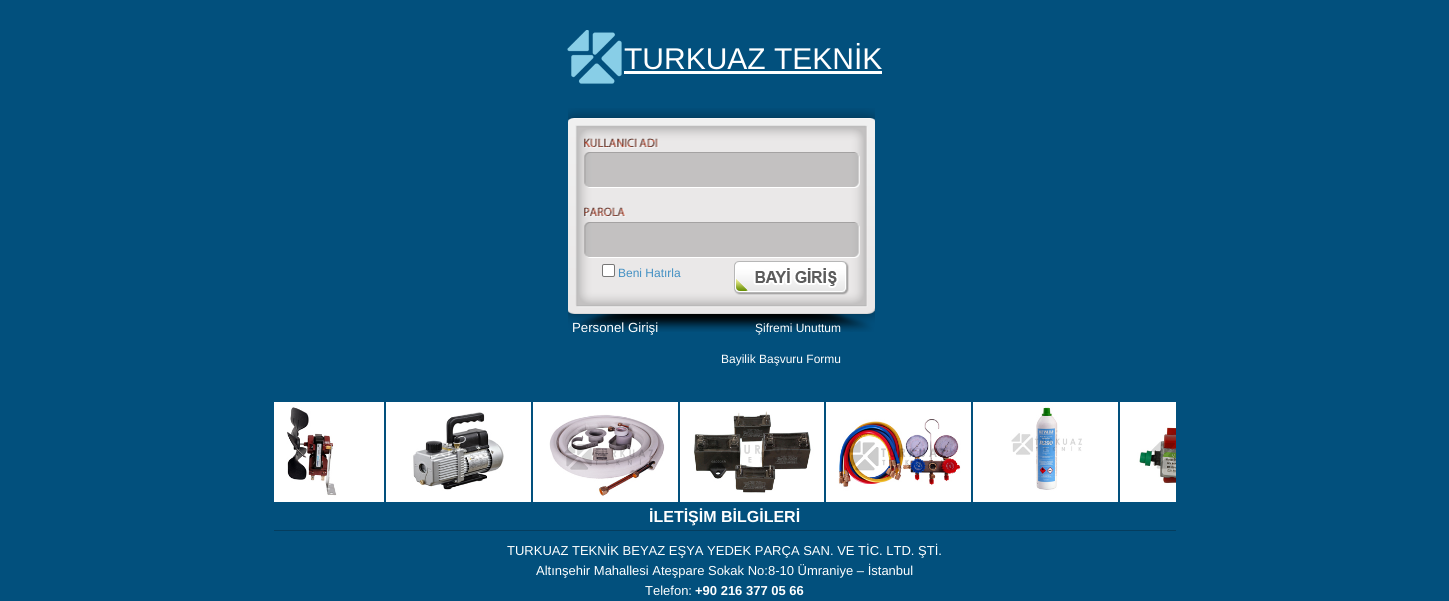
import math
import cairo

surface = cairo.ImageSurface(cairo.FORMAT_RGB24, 1449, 601)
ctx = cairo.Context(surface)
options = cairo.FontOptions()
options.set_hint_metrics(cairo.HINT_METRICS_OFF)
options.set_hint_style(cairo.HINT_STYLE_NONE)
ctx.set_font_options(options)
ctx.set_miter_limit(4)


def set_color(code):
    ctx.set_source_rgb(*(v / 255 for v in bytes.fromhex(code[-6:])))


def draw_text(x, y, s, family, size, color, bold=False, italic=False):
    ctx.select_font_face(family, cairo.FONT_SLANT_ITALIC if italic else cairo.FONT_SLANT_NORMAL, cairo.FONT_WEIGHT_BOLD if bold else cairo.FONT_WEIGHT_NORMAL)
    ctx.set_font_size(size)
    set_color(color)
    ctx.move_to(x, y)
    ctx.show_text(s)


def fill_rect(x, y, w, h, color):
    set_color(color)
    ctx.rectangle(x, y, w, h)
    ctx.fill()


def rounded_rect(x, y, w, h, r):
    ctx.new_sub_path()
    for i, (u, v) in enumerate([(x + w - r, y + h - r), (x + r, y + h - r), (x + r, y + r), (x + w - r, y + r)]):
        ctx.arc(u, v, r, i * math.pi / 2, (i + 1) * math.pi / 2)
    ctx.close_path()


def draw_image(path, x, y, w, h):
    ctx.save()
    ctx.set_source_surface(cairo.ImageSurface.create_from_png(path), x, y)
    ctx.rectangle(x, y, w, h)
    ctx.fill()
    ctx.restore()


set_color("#02507d")
ctx.paint()
draw_image("assets/img1.png", 567, 30, 55, 54)
draw_text(624, 69, "TURKUAZ TEKNİK", "Liberation Sans", 30, "#ffffff")
fill_rect(624, 71, 258, 3, "#ffffff")
draw_image("assets/img2.png", 568, 108, 307, 224)
rounded_rect(602.5, 264.5, 12, 12, 1.5)
ctx.fill_preserve()
set_color("#767676")
ctx.set_line_width(1)
ctx.stroke()
draw_text(618, 277, "Beni Hatırla", "Liberation Sans", 12, "#4390c3")
draw_image("assets/img3.png", 734, 261, 115, 34)
draw_text(572, 332, "Personel Girişi", "Liberation Sans", 13.25, "#ffffff")
draw_text(755, 332, "Şifremi Unuttum", "Liberation Sans", 12, "#ffffff")
draw_text(721, 363, "Bayilik Başvuru Formu", "Liberation Sans", 12, "#ffffff")
draw_image("assets/img4.png", 274, 402, 110, 100)
draw_image("assets/img5.png", 386, 402, 145, 100)
draw_image("assets/img6.png", 533, 402, 145, 100)
draw_image("assets/img7.png", 680, 402, 144, 100)
draw_image("assets/img8.png", 826, 402, 145, 100)
draw_image("assets/img9.png", 973, 402, 145, 100)
draw_image("assets/img10.png", 1120, 402, 56, 100)
fill_rect(274, 530, 902, 1, "#053d5e")
draw_text(649, 522, "İLETİŞİM BİLGİLERİ", "Liberation Sans", 16, "#ffffff", bold=True)
draw_text(507, 555, "TURKUAZ TEKNİK BEYAZ EŞYA YEDEK PARÇA SAN. VE TİC. LTD. ŞTİ.", "Liberation Sans", 13, "#ffffff")
draw_text(536, 575, "Altınşehir Mahallesi Ateşpare Sokak No:8-10 Ümraniye – İstanbul", "Liberation Sans", 13, "#ffffff")
draw_text(645, 595, "Telefon:", "Liberation Sans", 13, "#ffffff")
draw_text(695, 595, "+90 216 377 05 66", "Liberation Sans", 13, "#ffffff", bold=True)
surface.write_to_png("output.png")
